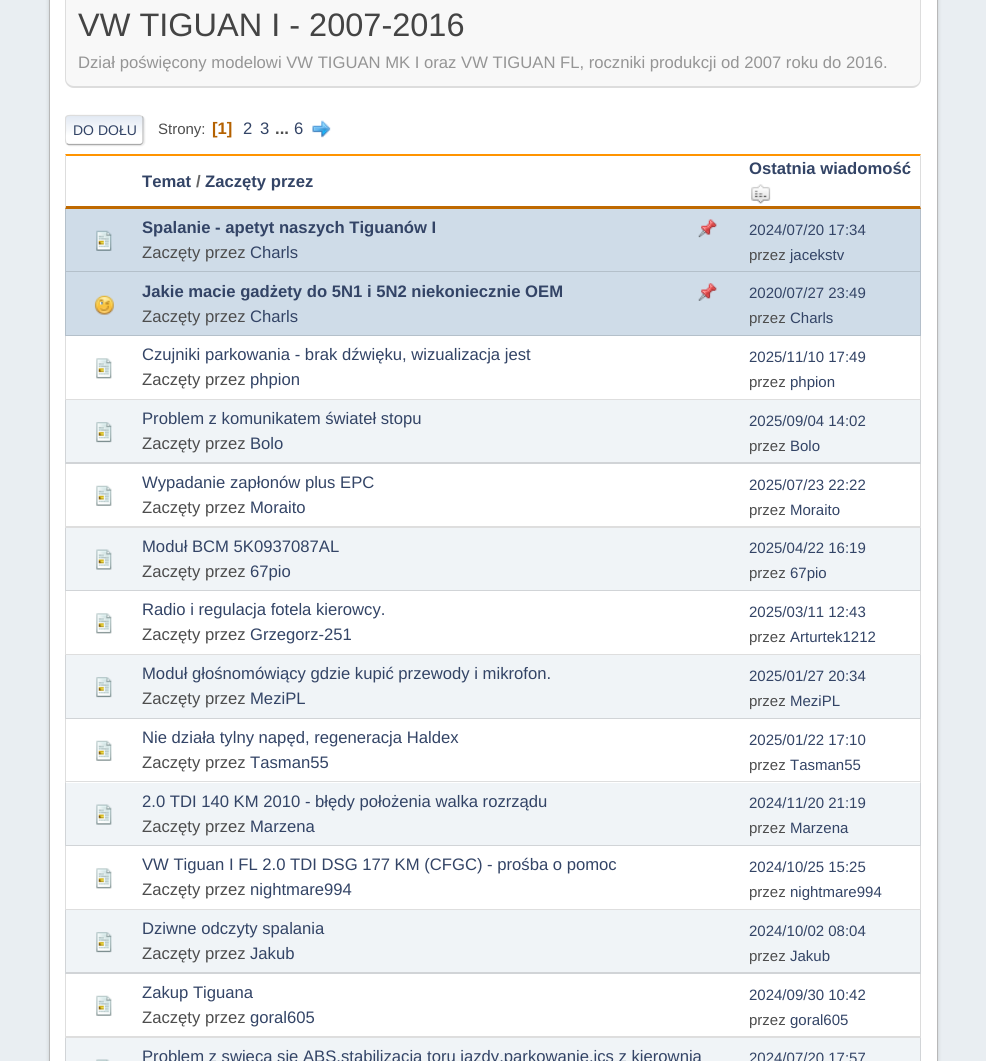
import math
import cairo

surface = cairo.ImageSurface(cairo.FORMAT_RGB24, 986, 1061)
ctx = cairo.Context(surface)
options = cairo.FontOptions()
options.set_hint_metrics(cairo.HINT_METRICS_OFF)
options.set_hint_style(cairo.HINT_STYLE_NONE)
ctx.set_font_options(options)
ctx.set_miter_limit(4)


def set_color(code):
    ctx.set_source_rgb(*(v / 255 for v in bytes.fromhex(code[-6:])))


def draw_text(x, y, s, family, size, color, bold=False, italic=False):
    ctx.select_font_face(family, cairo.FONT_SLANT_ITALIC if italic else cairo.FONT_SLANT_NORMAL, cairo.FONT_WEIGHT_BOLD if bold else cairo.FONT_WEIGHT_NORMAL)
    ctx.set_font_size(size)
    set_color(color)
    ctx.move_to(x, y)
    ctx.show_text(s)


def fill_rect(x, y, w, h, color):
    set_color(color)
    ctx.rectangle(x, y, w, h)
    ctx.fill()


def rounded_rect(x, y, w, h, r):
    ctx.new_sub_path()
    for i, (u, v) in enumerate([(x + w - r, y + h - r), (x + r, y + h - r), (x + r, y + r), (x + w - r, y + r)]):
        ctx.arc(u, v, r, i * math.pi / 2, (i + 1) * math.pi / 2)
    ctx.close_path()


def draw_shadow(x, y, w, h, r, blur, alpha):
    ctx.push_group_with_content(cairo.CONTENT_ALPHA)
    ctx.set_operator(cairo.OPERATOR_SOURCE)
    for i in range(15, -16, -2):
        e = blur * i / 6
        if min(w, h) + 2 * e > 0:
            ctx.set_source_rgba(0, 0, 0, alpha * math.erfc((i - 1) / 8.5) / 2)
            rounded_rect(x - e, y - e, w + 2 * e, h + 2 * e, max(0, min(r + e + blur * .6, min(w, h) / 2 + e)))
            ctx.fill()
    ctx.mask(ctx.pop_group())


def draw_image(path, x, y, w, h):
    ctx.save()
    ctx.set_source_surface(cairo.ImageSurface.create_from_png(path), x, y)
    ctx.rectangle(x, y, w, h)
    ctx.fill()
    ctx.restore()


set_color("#e9eef2")
ctx.paint()
set_color("#000000")
draw_shadow(49, -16, 889, 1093, 10, 2, 0.14)
set_color("#ffffff")
ctx.rectangle(49.5, -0.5, 888, 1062)
ctx.fill_preserve()
set_color("#b8b8b8")
ctx.set_line_width(1)
ctx.stroke()
set_color("#f8f8f8")
ctx.new_path()
ctx.move_to(65, -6)
ctx.line_to(921, -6)
ctx.line_to(921, 79)
ctx.curve_to(921, 84, 917, 88, 912, 88)
ctx.line_to(74, 88)
ctx.curve_to(69, 88, 65, 84, 65, 79)
ctx.close_path()
ctx.fill()
set_color("#dddddd")
ctx.set_fill_rule(cairo.FILL_RULE_EVEN_ODD)
ctx.new_path()
ctx.move_to(65, -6)
ctx.line_to(921, -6)
ctx.line_to(921, 79)
ctx.curve_to(921, 84, 917, 88, 912, 88)
ctx.line_to(74, 88)
ctx.curve_to(69, 88, 65, 84, 65, 79)
ctx.close_path()
ctx.move_to(66, -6)
ctx.line_to(920, -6)
ctx.line_to(920, 79)
ctx.curve_to(920, 83, 917, 86, 912, 86)
ctx.line_to(74, 86)
ctx.curve_to(70, 86, 66, 83, 66, 79)
ctx.close_path()
ctx.fill()
draw_text(78, 36, "VW TIGUAN I - 2007-2016", "Liberation Sans", 32.5, "#444444")
draw_text(78, 68, "Dział poświęcony modelowi VW TIGUAN MK I oraz VW TIGUAN FL, roczniki produkcji od 2007 roku do 2016.", "Liberation Sans", 16.65, "#959595")
set_color("#dddddd")
draw_shadow(66, 116, 79, 30, 4, 0.5, 0.57)
set_color("#ffffff")
rounded_rect(65, 115, 79, 30, 4)
ctx.fill()
ctx.save()
ctx.set_fill_rule(cairo.FILL_RULE_WINDING)
rounded_rect(65, 115, 79, 30, 4)
ctx.clip()
gradient = cairo.LinearGradient(104, 116, 104, 144)
gradient.add_color_stop_rgba(0, 0.886, 0.914, 0.953, 1)
gradient.add_color_stop_rgba(0.7, 1, 1, 1, 1)
ctx.set_source(gradient)
ctx.rectangle(65, 116, 79, 28)
ctx.fill()
ctx.restore()
ctx.new_path()
ctx.move_to(142, 116.5)
ctx.curve_to(143, 117, 143, 118, 143, 119)
ctx.line_to(143, 141)
ctx.curve_to(143, 142, 143, 143, 142, 143.5)
set_color("#bbbbbb")
ctx.set_line_width(1.2)
ctx.stroke()
ctx.new_path()
ctx.move_to(142, 143.5)
ctx.line_to(140.5, 144.5)
ctx.line_to(68.5, 144.5)
ctx.line_to(66.5, 143.5)
set_color("#aaaaaa")
ctx.stroke()
ctx.save()
ctx.set_fill_rule(cairo.FILL_RULE_WINDING)
ctx.rectangle(65, 106, 856, 48)
ctx.clip()
ctx.new_path()
ctx.move_to(66.5, 143.5)
ctx.curve_to(64.5, 141.5, 65.5, 132.5, 65.5, 130)
ctx.curve_to(65.5, 113, 63, 115.5, 80.5, 115.5)
ctx.line_to(140, 115.5)
ctx.line_to(142, 116.5)
set_color("#dddddd")
ctx.stroke()
ctx.restore()
draw_text(73, 135, "DO DOŁU", "Liberation Sans", 14, "#334466")
draw_text(158, 134, "Strony:", "Liberation Sans", 15, "#4d4d4d")
draw_text(212, 134, "[1]", "Liberation Sans", 16.65, "#b46100", bold=True)
draw_text(243, 134, "2", "Liberation Sans", 16.65, "#334466")
draw_text(260, 134, "3", "Liberation Sans", 16.65, "#334466")
draw_text(275, 134, "...", "Liberation Sans", 16.65, "#4d4d4d", bold=True)
draw_text(294, 134, "6", "Liberation Sans", 16.65, "#334466")
draw_image("assets/img1.png", 312, 120, 19, 18)
set_color("#ff9400")
ctx.set_fill_rule(cairo.FILL_RULE_WINDING)
ctx.new_path()
ctx.move_to(65, 154)
ctx.line_to(921, 154)
ctx.line_to(920, 156)
ctx.line_to(66, 156)
ctx.close_path()
ctx.fill()
set_color("#dddddd")
ctx.new_path()
ctx.move_to(921, 154)
ctx.line_to(921, 209)
ctx.line_to(920, 206)
ctx.line_to(920, 156)
ctx.close_path()
ctx.fill()
set_color("#bf6900")
ctx.new_path()
ctx.move_to(921, 209)
ctx.line_to(65, 209)
ctx.line_to(66, 206)
ctx.line_to(920, 206)
ctx.close_path()
ctx.fill()
set_color("#dddddd")
ctx.new_path()
ctx.move_to(65, 209)
ctx.line_to(65, 154)
ctx.line_to(66, 156)
ctx.line_to(66, 206)
ctx.close_path()
ctx.fill()
draw_text(749, 174, "Ostatnia wiadomość", "Liberation Sans", 16.65, "#334466", bold=True)
draw_image("assets/img2.png", 751, 184, 20, 20)
draw_text(142, 187, "Temat", "Liberation Sans", 16.65, "#334466", bold=True)
draw_text(196, 187, "/", "Liberation Sans", 16.65, "#666666", bold=True)
draw_text(205, 187, "Zaczęty przez", "Liberation Sans", 16.65, "#334466", bold=True)
fill_rect(65, 209, 856, 127, "#cfdce8")
set_color("#b4bfca")
ctx.new_path()
ctx.move_to(921, 209)
ctx.line_to(921, 272)
ctx.line_to(920, 271)
ctx.line_to(920, 209)
ctx.close_path()
ctx.fill()
ctx.set_source_rgba(0, 0, 0, 0.13)
ctx.new_path()
ctx.move_to(921, 272)
ctx.line_to(65, 272)
ctx.line_to(66, 271)
ctx.line_to(920, 271)
ctx.close_path()
ctx.fill()
ctx.new_path()
ctx.move_to(65, 272)
ctx.line_to(65, 209)
ctx.line_to(66, 209)
ctx.line_to(66, 271)
ctx.close_path()
ctx.fill()
draw_image("assets/img3.png", 96, 230, 16, 21)
draw_text(142, 233, "Spalanie - apetyt naszych Tiguanów I", "Liberation Sans", 16.65, "#334466", bold=True)
draw_image("assets/img4.png", 698, 219, 19, 19)
draw_text(142, 258, "Zaczęty przez", "Liberation Sans", 16.65, "#4d4d4d")
draw_text(250, 258, "Charls", "Liberation Sans", 16.65, "#334466")
draw_text(749, 235, "2024/07/20 17:34", "Liberation Sans", 15, "#334466")
draw_text(749, 260, "przez", "Liberation Sans", 15, "#4d4d4d")
draw_text(790, 260, "jacekstv", "Liberation Sans", 15, "#334466")
set_color("#b4bfca")
ctx.new_path()
ctx.move_to(921, 272)
ctx.line_to(921, 336)
ctx.line_to(920, 335)
ctx.line_to(920, 272)
ctx.close_path()
ctx.fill()
ctx.set_source_rgba(0, 0, 0, 0.13)
ctx.new_path()
ctx.move_to(921, 336)
ctx.line_to(65, 336)
ctx.line_to(66, 335)
ctx.line_to(920, 335)
ctx.close_path()
ctx.fill()
ctx.new_path()
ctx.move_to(65, 336)
ctx.line_to(65, 272)
ctx.line_to(66, 272)
ctx.line_to(66, 335)
ctx.close_path()
ctx.fill()
draw_image("assets/img5.png", 94, 295, 20, 20)
draw_text(142, 297, "Jakie macie gadżety do 5N1 i 5N2 niekoniecznie OEM", "Liberation Sans", 16.65, "#334466", bold=True)
draw_image("assets/img6.png", 698, 283, 19, 18)
draw_text(142, 322, "Zaczęty przez", "Liberation Sans", 16.65, "#4d4d4d")
draw_text(250, 322, "Charls", "Liberation Sans", 16.65, "#334466")
draw_text(749, 298, "2020/07/27 23:49", "Liberation Sans", 15, "#334466")
draw_text(749, 323, "przez", "Liberation Sans", 15, "#4d4d4d")
draw_text(790, 323, "Charls", "Liberation Sans", 15, "#334466")
set_color("#dcdcdc")
ctx.new_path()
ctx.move_to(921, 336)
ctx.line_to(921, 400)
ctx.line_to(920, 399)
ctx.line_to(920, 336)
ctx.close_path()
ctx.fill()
ctx.set_source_rgba(0, 0, 0, 0.13)
ctx.new_path()
ctx.move_to(921, 400)
ctx.line_to(65, 400)
ctx.line_to(66, 399)
ctx.line_to(920, 399)
ctx.close_path()
ctx.fill()
ctx.new_path()
ctx.move_to(65, 400)
ctx.line_to(65, 336)
ctx.line_to(66, 336)
ctx.line_to(66, 399)
ctx.close_path()
ctx.fill()
draw_image("assets/img7.png", 96, 358, 16, 21)
draw_text(142, 360, "Czujniki parkowania - brak dźwięku, wizualizacja jest", "Liberation Sans", 16.65, "#334466")
draw_text(142, 385, "Zaczęty przez", "Liberation Sans", 16.65, "#4d4d4d")
draw_text(250, 385, "phpion", "Liberation Sans", 16.65, "#334466")
draw_text(749, 362, "2025/11/10 17:49", "Liberation Sans", 15, "#334466")
draw_text(749, 387, "przez", "Liberation Sans", 15, "#4d4d4d")
draw_text(790, 387, "phpion", "Liberation Sans", 15, "#334466")
fill_rect(65, 400, 856, 64, "#f0f4f7")
set_color("#d1d4d7")
ctx.new_path()
ctx.move_to(921, 400)
ctx.line_to(921, 464)
ctx.line_to(920, 462)
ctx.line_to(920, 400)
ctx.close_path()
ctx.fill()
ctx.set_source_rgba(0, 0, 0, 0.13)
ctx.new_path()
ctx.move_to(921, 464)
ctx.line_to(65, 464)
ctx.line_to(66, 462)
ctx.line_to(920, 462)
ctx.close_path()
ctx.fill()
ctx.new_path()
ctx.move_to(65, 464)
ctx.line_to(65, 400)
ctx.line_to(66, 400)
ctx.line_to(66, 462)
ctx.close_path()
ctx.fill()
draw_image("assets/img8.png", 96, 422, 16, 21)
draw_text(142, 424, "Problem z komunikatem świateł stopu", "Liberation Sans", 16.65, "#334466")
draw_text(142, 449, "Zaczęty przez", "Liberation Sans", 16.65, "#4d4d4d")
draw_text(250, 449, "Bolo", "Liberation Sans", 16.65, "#334466")
draw_text(749, 426, "2025/09/04 14:02", "Liberation Sans", 15, "#334466")
draw_text(749, 451, "przez", "Liberation Sans", 15, "#4d4d4d")
draw_text(790, 451, "Bolo", "Liberation Sans", 15, "#334466")
set_color("#dcdcdc")
ctx.new_path()
ctx.move_to(921, 464)
ctx.line_to(921, 528)
ctx.line_to(920, 526)
ctx.line_to(920, 464)
ctx.close_path()
ctx.fill()
ctx.set_source_rgba(0, 0, 0, 0.13)
ctx.new_path()
ctx.move_to(921, 528)
ctx.line_to(65, 528)
ctx.line_to(66, 526)
ctx.line_to(920, 526)
ctx.close_path()
ctx.fill()
ctx.new_path()
ctx.move_to(65, 528)
ctx.line_to(65, 464)
ctx.line_to(66, 464)
ctx.line_to(66, 526)
ctx.close_path()
ctx.fill()
draw_image("assets/img9.png", 96, 485, 16, 21)
draw_text(142, 488, "Wypadanie zapłonów plus EPC", "Liberation Sans", 16.65, "#334466")
draw_text(142, 513, "Zaczęty przez", "Liberation Sans", 16.65, "#4d4d4d")
draw_text(250, 513, "Moraito", "Liberation Sans", 16.65, "#334466")
draw_text(749, 490, "2025/07/23 22:22", "Liberation Sans", 15, "#334466")
draw_text(749, 515, "przez", "Liberation Sans", 15, "#4d4d4d")
draw_text(790, 515, "Moraito", "Liberation Sans", 15, "#334466")
fill_rect(65, 528, 856, 63, "#f0f4f7")
set_color("#d1d4d7")
ctx.new_path()
ctx.move_to(921, 528)
ctx.line_to(921, 591)
ctx.line_to(920, 590)
ctx.line_to(920, 528)
ctx.close_path()
ctx.fill()
ctx.set_source_rgba(0, 0, 0, 0.13)
ctx.new_path()
ctx.move_to(921, 591)
ctx.line_to(65, 591)
ctx.line_to(66, 590)
ctx.line_to(920, 590)
ctx.close_path()
ctx.fill()
ctx.new_path()
ctx.move_to(65, 591)
ctx.line_to(65, 528)
ctx.line_to(66, 528)
ctx.line_to(66, 590)
ctx.close_path()
ctx.fill()
draw_image("assets/img10.png", 96, 549, 16, 21)
draw_text(142, 552, "Moduł BCM 5K0937087AL", "Liberation Sans", 16.65, "#334466")
draw_text(142, 577, "Zaczęty przez", "Liberation Sans", 16.65, "#4d4d4d")
draw_text(250, 577, "67pio", "Liberation Sans", 16.65, "#334466")
draw_text(749, 553, "2025/04/22 16:19", "Liberation Sans", 15, "#334466")
draw_text(749, 578, "przez", "Liberation Sans", 15, "#4d4d4d")
draw_text(790, 578, "67pio", "Liberation Sans", 15, "#334466")
set_color("#dcdcdc")
ctx.new_path()
ctx.move_to(921, 591)
ctx.line_to(921, 655)
ctx.line_to(920, 654)
ctx.line_to(920, 591)
ctx.close_path()
ctx.fill()
ctx.set_source_rgba(0, 0, 0, 0.13)
ctx.new_path()
ctx.move_to(921, 655)
ctx.line_to(65, 655)
ctx.line_to(66, 654)
ctx.line_to(920, 654)
ctx.close_path()
ctx.fill()
ctx.new_path()
ctx.move_to(65, 655)
ctx.line_to(65, 591)
ctx.line_to(66, 591)
ctx.line_to(66, 654)
ctx.close_path()
ctx.fill()
draw_image("assets/img7.png", 96, 613, 16, 21)
draw_text(142, 615, "Radio i regulacja fotela kierowcy.", "Liberation Sans", 16.65, "#334466")
draw_text(142, 640, "Zaczęty przez", "Liberation Sans", 16.65, "#4d4d4d")
draw_text(250, 640, "Grzegorz-251", "Liberation Sans", 16.65, "#334466")
draw_text(749, 617, "2025/03/11 12:43", "Liberation Sans", 15, "#334466")
draw_text(749, 642, "przez", "Liberation Sans", 15, "#4d4d4d")
draw_text(790, 642, "Arturtek1212", "Liberation Sans", 15, "#334466")
fill_rect(65, 655, 856, 64, "#f0f4f7")
set_color("#d1d4d7")
ctx.new_path()
ctx.move_to(921, 655)
ctx.line_to(921, 719)
ctx.line_to(920, 718)
ctx.line_to(920, 655)
ctx.close_path()
ctx.fill()
ctx.set_source_rgba(0, 0, 0, 0.13)
ctx.new_path()
ctx.move_to(921, 719)
ctx.line_to(65, 719)
ctx.line_to(66, 718)
ctx.line_to(920, 718)
ctx.close_path()
ctx.fill()
ctx.new_path()
ctx.move_to(65, 719)
ctx.line_to(65, 655)
ctx.line_to(66, 655)
ctx.line_to(66, 718)
ctx.close_path()
ctx.fill()
draw_image("assets/img8.png", 96, 677, 16, 21)
draw_text(142, 679, "Moduł głośnomówiący gdzie kupić przewody i mikrofon.", "Liberation Sans", 16.65, "#334466")
draw_text(142, 704, "Zaczęty przez", "Liberation Sans", 16.65, "#4d4d4d")
draw_text(250, 704, "MeziPL", "Liberation Sans", 16.65, "#334466")
draw_text(749, 681, "2025/01/27 20:34", "Liberation Sans", 15, "#334466")
draw_text(749, 706, "przez", "Liberation Sans", 15, "#4d4d4d")
draw_text(790, 706, "MeziPL", "Liberation Sans", 15, "#334466")
set_color("#dcdcdc")
ctx.new_path()
ctx.move_to(921, 719)
ctx.line_to(921, 782)
ctx.line_to(920, 781)
ctx.line_to(920, 719)
ctx.close_path()
ctx.fill()
ctx.set_source_rgba(0, 0, 0, 0.13)
ctx.new_path()
ctx.move_to(921, 782)
ctx.line_to(65, 782)
ctx.line_to(66, 781)
ctx.line_to(920, 781)
ctx.close_path()
ctx.fill()
ctx.new_path()
ctx.move_to(65, 782)
ctx.line_to(65, 719)
ctx.line_to(66, 719)
ctx.line_to(66, 781)
ctx.close_path()
ctx.fill()
draw_image("assets/img9.png", 96, 740, 16, 21)
draw_text(142, 743, "Nie działa tylny napęd, regeneracja Haldex", "Liberation Sans", 16.65, "#334466")
draw_text(142, 768, "Zaczęty przez", "Liberation Sans", 16.65, "#4d4d4d")
draw_text(250, 768, "Tasman55", "Liberation Sans", 16.65, "#334466")
draw_text(749, 745, "2025/01/22 17:10", "Liberation Sans", 15, "#334466")
draw_text(749, 770, "przez", "Liberation Sans", 15, "#4d4d4d")
draw_text(790, 770, "Tasman55", "Liberation Sans", 15, "#334466")
fill_rect(65, 783, 856, 63, "#f0f4f7")
ctx.set_source_rgba(0, 0, 0, 0.13)
ctx.new_path()
ctx.move_to(921, 782)
ctx.line_to(921, 846)
ctx.line_to(920, 845)
ctx.line_to(920, 782)
ctx.close_path()
ctx.fill()
ctx.new_path()
ctx.move_to(921, 846)
ctx.line_to(65, 846)
ctx.line_to(66, 845)
ctx.line_to(920, 845)
ctx.close_path()
ctx.fill()
ctx.new_path()
ctx.move_to(65, 846)
ctx.line_to(65, 782)
ctx.line_to(66, 782)
ctx.line_to(66, 845)
ctx.close_path()
ctx.fill()
draw_image("assets/img11.png", 96, 804, 16, 21)
draw_text(142, 807, "2.0 TDI 140 KM 2010 - błędy położenia walka rozrządu", "Liberation Sans", 16.65, "#334466")
draw_text(142, 832, "Zaczęty przez", "Liberation Sans", 16.65, "#4d4d4d")
draw_text(250, 832, "Marzena", "Liberation Sans", 16.65, "#334466")
draw_text(749, 808, "2024/11/20 21:19", "Liberation Sans", 15, "#334466")
draw_text(749, 833, "przez", "Liberation Sans", 15, "#4d4d4d")
draw_text(790, 833, "Marzena", "Liberation Sans", 15, "#334466")
set_color("#dcdcdc")
ctx.new_path()
ctx.move_to(921, 846)
ctx.line_to(921, 910)
ctx.line_to(920, 909)
ctx.line_to(920, 846)
ctx.close_path()
ctx.fill()
ctx.set_source_rgba(0, 0, 0, 0.13)
ctx.new_path()
ctx.move_to(921, 910)
ctx.line_to(65, 910)
ctx.line_to(66, 909)
ctx.line_to(920, 909)
ctx.close_path()
ctx.fill()
ctx.new_path()
ctx.move_to(65, 910)
ctx.line_to(65, 846)
ctx.line_to(66, 846)
ctx.line_to(66, 909)
ctx.close_path()
ctx.fill()
draw_image("assets/img7.png", 96, 868, 16, 21)
draw_text(142, 870, "VW Tiguan I FL 2.0 TDI DSG 177 KM (CFGC) - prośba o pomoc", "Liberation Sans", 16.65, "#334466")
draw_text(142, 895, "Zaczęty przez", "Liberation Sans", 16.65, "#4d4d4d")
draw_text(250, 895, "nightmare994", "Liberation Sans", 16.65, "#334466")
draw_text(749, 872, "2024/10/25 15:25", "Liberation Sans", 15, "#334466")
draw_text(749, 897, "przez", "Liberation Sans", 15, "#4d4d4d")
draw_text(790, 897, "nightmare994", "Liberation Sans", 15, "#334466")
fill_rect(65, 910, 856, 64, "#f0f4f7")
set_color("#d1d4d7")
ctx.new_path()
ctx.move_to(921, 910)
ctx.line_to(921, 974)
ctx.line_to(920, 972)
ctx.line_to(920, 910)
ctx.close_path()
ctx.fill()
ctx.set_source_rgba(0, 0, 0, 0.13)
ctx.new_path()
ctx.move_to(921, 974)
ctx.line_to(65, 974)
ctx.line_to(66, 972)
ctx.line_to(920, 972)
ctx.close_path()
ctx.fill()
ctx.new_path()
ctx.move_to(65, 974)
ctx.line_to(65, 910)
ctx.line_to(66, 910)
ctx.line_to(66, 972)
ctx.close_path()
ctx.fill()
draw_image("assets/img8.png", 96, 932, 16, 21)
draw_text(142, 934, "Dziwne odczyty spalania", "Liberation Sans", 16.65, "#334466")
draw_text(142, 959, "Zaczęty przez", "Liberation Sans", 16.65, "#4d4d4d")
draw_text(250, 959, "Jakub", "Liberation Sans", 16.65, "#334466")
draw_text(749, 936, "2024/10/02 08:04", "Liberation Sans", 15, "#334466")
draw_text(749, 961, "przez", "Liberation Sans", 15, "#4d4d4d")
draw_text(790, 961, "Jakub", "Liberation Sans", 15, "#334466")
set_color("#dcdcdc")
ctx.new_path()
ctx.move_to(921, 974)
ctx.line_to(921, 1038)
ctx.line_to(920, 1036)
ctx.line_to(920, 974)
ctx.close_path()
ctx.fill()
ctx.set_source_rgba(0, 0, 0, 0.13)
ctx.new_path()
ctx.move_to(921, 1038)
ctx.line_to(65, 1038)
ctx.line_to(66, 1036)
ctx.line_to(920, 1036)
ctx.close_path()
ctx.fill()
ctx.new_path()
ctx.move_to(65, 1038)
ctx.line_to(65, 974)
ctx.line_to(66, 974)
ctx.line_to(66, 1036)
ctx.close_path()
ctx.fill()
draw_image("assets/img9.png", 96, 995, 16, 21)
draw_text(142, 998, "Zakup Tiguana", "Liberation Sans", 16.65, "#334466")
draw_text(142, 1023, "Zaczęty przez", "Liberation Sans", 16.65, "#4d4d4d")
draw_text(250, 1023, "goral605", "Liberation Sans", 16.65, "#334466")
draw_text(749, 1000, "2024/09/30 10:42", "Liberation Sans", 15, "#334466")
draw_text(749, 1025, "przez", "Liberation Sans", 15, "#4d4d4d")
draw_text(790, 1025, "goral605", "Liberation Sans", 15, "#334466")
fill_rect(66, 1038, 854, 23, "#f0f4f7")
set_color("#d1d4d7")
ctx.new_path()
ctx.move_to(921, 1038)
ctx.line_to(921, 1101)
ctx.line_to(920, 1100)
ctx.line_to(920, 1038)
ctx.close_path()
ctx.fill()
ctx.new_path()
ctx.move_to(65, 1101)
ctx.line_to(65, 1038)
ctx.line_to(66, 1038)
ctx.line_to(66, 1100)
ctx.close_path()
ctx.fill()
draw_image("assets/img12.png", 96, 1059, 14, 2)
draw_text(142, 1062, "Problem z swieca sie ABS,stabilizacja toru jazdy,parkowanie,ics z kierownia", "Liberation Sans", 16.65, "#334466")
draw_text(749, 1063, "2024/07/20 17:57", "Liberation Sans", 15, "#334466")
surface.write_to_png("output.png")
